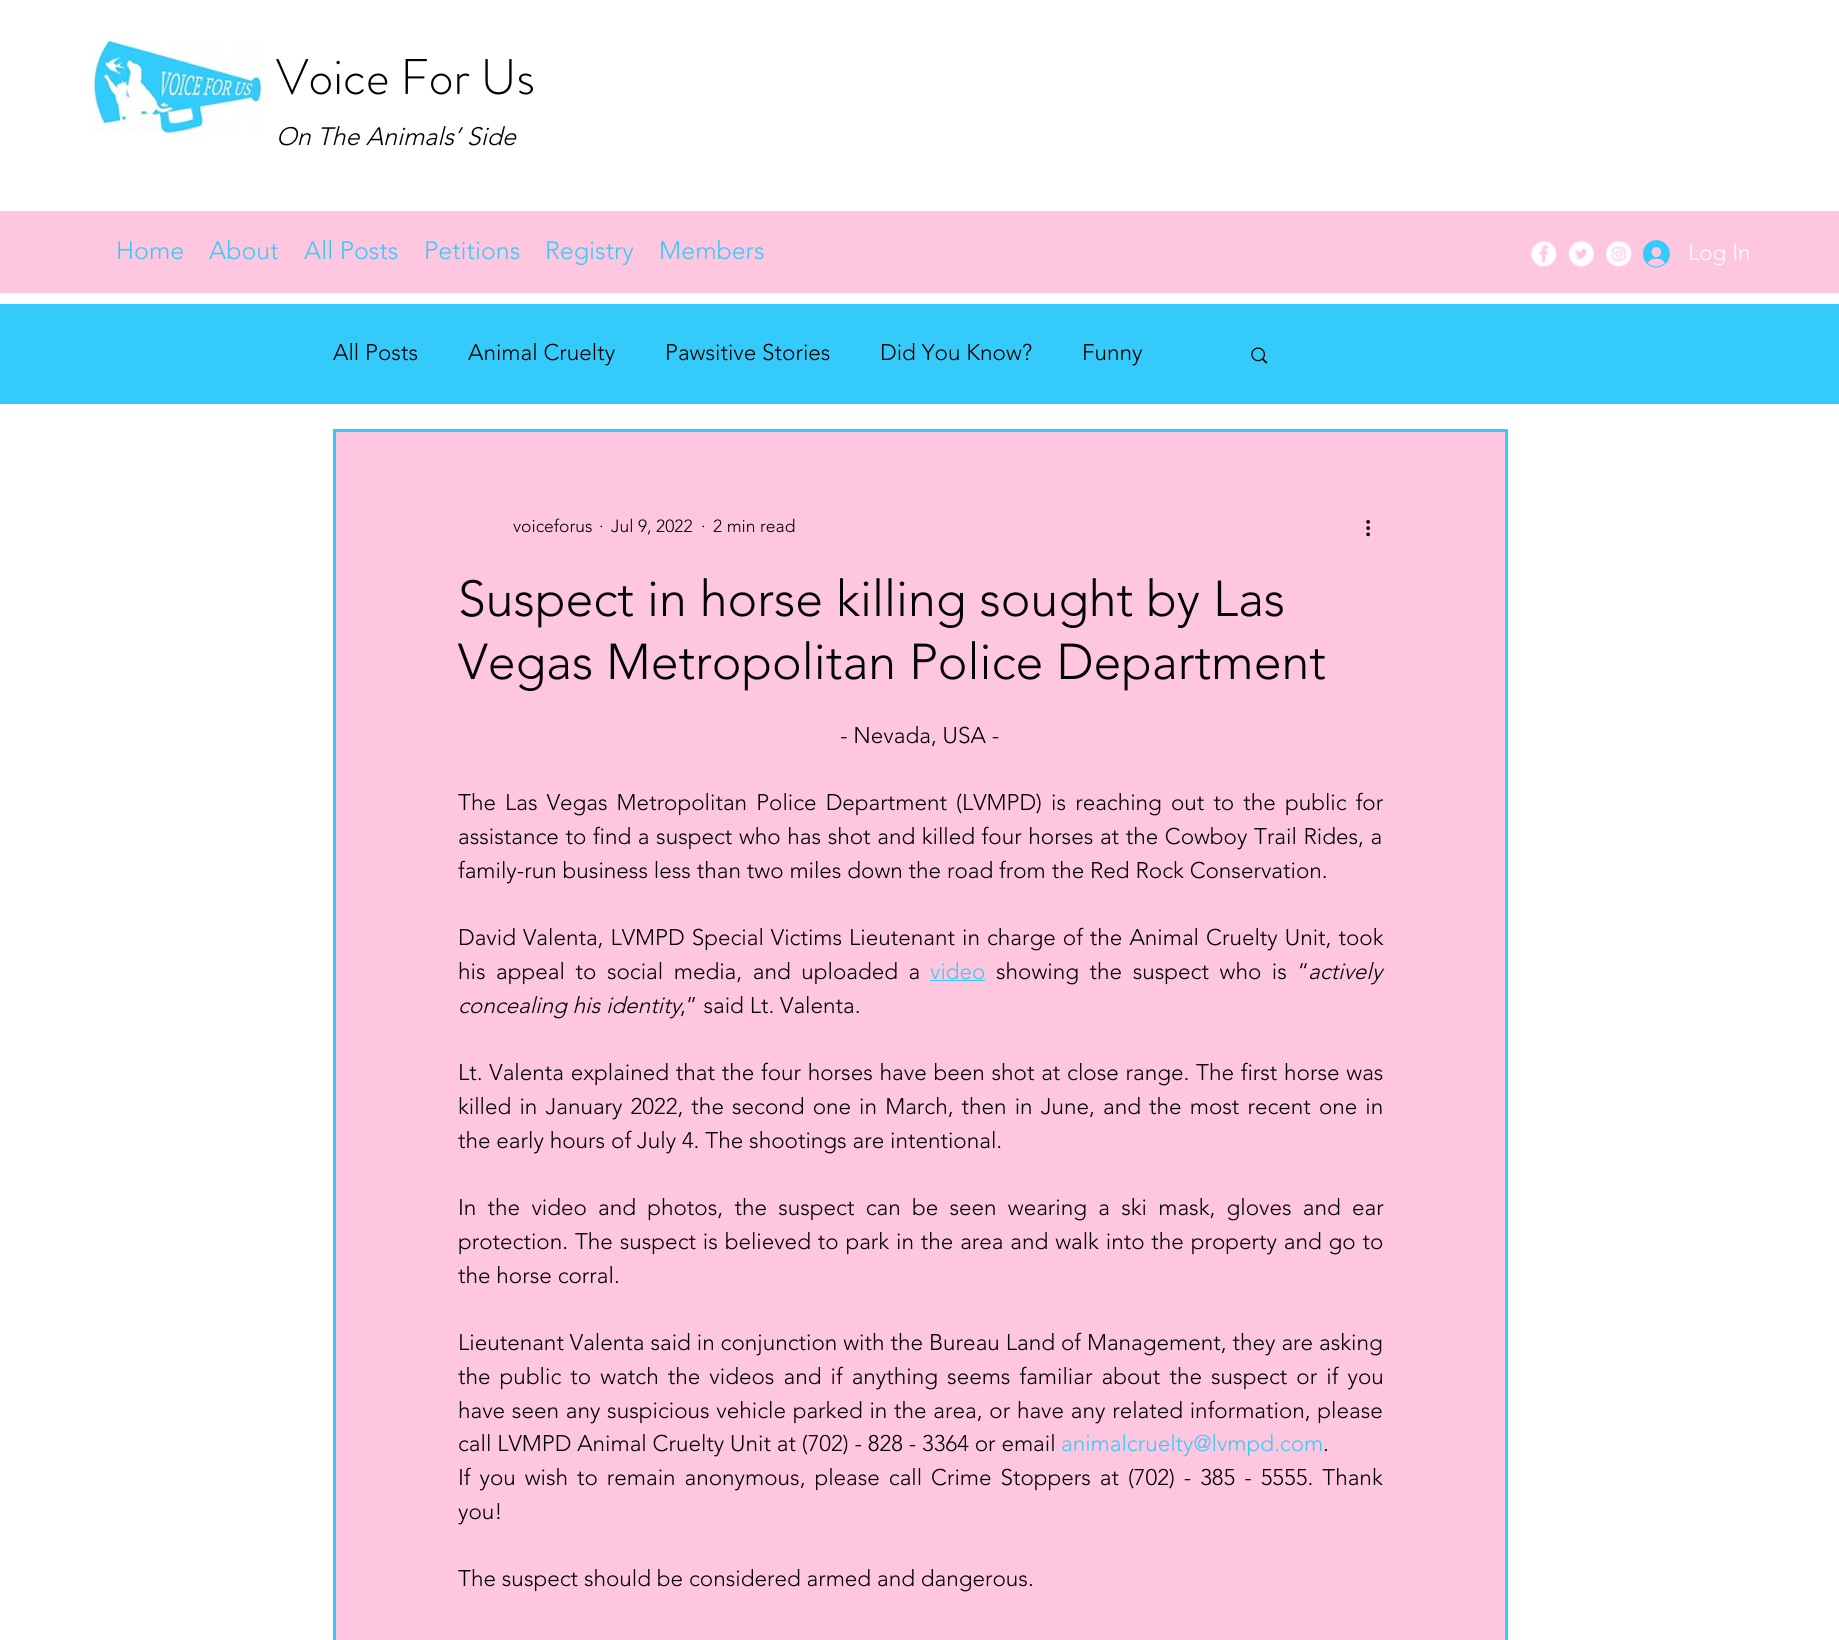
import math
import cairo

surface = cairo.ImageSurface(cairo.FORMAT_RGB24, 1839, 1640)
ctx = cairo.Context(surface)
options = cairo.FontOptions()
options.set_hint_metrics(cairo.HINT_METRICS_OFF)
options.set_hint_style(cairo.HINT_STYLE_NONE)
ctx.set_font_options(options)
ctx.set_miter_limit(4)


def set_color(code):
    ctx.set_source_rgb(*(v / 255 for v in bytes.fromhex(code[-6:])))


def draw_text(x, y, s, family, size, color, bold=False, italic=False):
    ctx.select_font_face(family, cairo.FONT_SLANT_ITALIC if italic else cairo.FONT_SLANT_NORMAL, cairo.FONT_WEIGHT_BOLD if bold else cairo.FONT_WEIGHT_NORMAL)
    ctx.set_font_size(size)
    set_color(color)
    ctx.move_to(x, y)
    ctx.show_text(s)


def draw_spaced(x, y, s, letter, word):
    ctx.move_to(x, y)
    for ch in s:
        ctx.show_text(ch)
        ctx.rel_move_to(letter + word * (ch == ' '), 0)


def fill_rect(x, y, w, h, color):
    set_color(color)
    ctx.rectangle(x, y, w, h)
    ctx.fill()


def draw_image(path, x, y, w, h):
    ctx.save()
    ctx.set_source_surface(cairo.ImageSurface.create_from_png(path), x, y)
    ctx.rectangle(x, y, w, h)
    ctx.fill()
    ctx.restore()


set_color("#ffffff")
ctx.paint()
draw_image("assets/img1.png", 93, 40, 170, 94)
draw_text(276, 94, "Voice For Us", "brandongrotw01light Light", 50, "#000000")
draw_text(276, 145, "On The Animals’ Side", "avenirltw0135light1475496 Light", 25, "#000000", italic=True)
fill_rect(0, 211, 1839, 82, "#ffc6df")
draw_text(116, 259, "Home", "avenirltw0135light1475496 Light", 25, "#34cbfa")
draw_text(209, 259, "About", "avenirltw0135light1475496 Light", 25, "#34cbfa")
draw_text(304, 259, "All Posts", "avenirltw0135light1475496 Light", 25, "#34cbfa")
draw_text(424, 259, "Petitions", "avenirltw0135light1475496 Light", 25, "#34cbfa")
draw_text(545, 259, "Registry", "avenirltw0135light1475496 Light", 25, "#34cbfa")
draw_text(659, 259, "Members", "avenirltw0135light1475496 Light", 25, "#34cbfa")
draw_image("assets/img2.png", 1531, 241, 26, 26)
draw_image("assets/img3.png", 1568, 241, 26, 26)
draw_image("assets/img4.png", 1606, 241, 26, 26)
draw_image("assets/img5.png", 1643, 240, 27, 28)
draw_text(1688, 260, "Log In", "avenirltw0135light1475496 Light", 22.5, "#ffffff")
fill_rect(0, 304, 1839, 100, "#34cbfa")
draw_text(333, 360, "All Posts", "avenirltw0135light1475496 Light", 22.5, "#000000")
draw_text(468, 360, "Animal Cruelty", "avenirltw0135light1475496 Light", 22.5, "#000000")
draw_text(665, 360, "Pawsitive Stories", "avenirltw0135light1475496 Light", 22.5, "#000000")
draw_text(880, 360, "Did You Know?", "avenirltw0135light1475496 Light", 22.5, "#000000")
draw_text(1082, 360, "Funny", "avenirltw0135light1475496 Light", 22.5, "#000000")
draw_image("assets/img6.png", 1251, 347, 17, 17)
set_color("#ffc6df")
ctx.rectangle(334.5, 430.5, 1172, 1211)
ctx.fill_preserve()
set_color("#34cbfa")
ctx.set_line_width(3)
ctx.stroke()
draw_text(513, 532, "voiceforus", "avenirltw0135light1475496 Light", 17.5, "#000000")
draw_text(599, 532, "·", "avenirltw0135light1475496 Light", 17.5, "#000000")
draw_text(611, 532, "Jul 9, 2022", "avenirltw0135light1475496 Light", 17.5, "#000000")
draw_text(701, 532, "·", "avenirltw0135light1475496 Light", 17.5, "#000000")
draw_text(713, 532, "2 min read", "avenirltw0135light1475496 Light", 17.5, "#000000")
draw_image("assets/img7.png", 1366, 520, 4, 17)
draw_text(458, 616, "Suspect in horse killing sought by Las", "avenirltw0135light1475496 Light", 50, "#000000")
draw_text(458, 679, "Vegas Metropolitan Police Department", "avenirltw0135light1475496 Light", 50, "#000000")
draw_text(840, 743, "- Nevada, USA -", "avenirltw0135light1475496 Light", 22.5, "#000000")
draw_spaced(458, 810, "The Las Vegas Metropolitan Police Department (LVMPD) is reaching out to the public for", 0, 3.25)
draw_spaced(458, 844, "assistance to find a suspect who has shot and killed four horses at the Cowboy Trail Rides, a", 0, 0.75)
draw_text(458, 878, "family-run business less than two miles down the road from the Red Rock Conservation.", "avenirltw0135light1475496 Light", 22.5, "#000000")
draw_spaced(458, 945, "David Valenta, LVMPD Special Victims Lieutenant in charge of the Animal Cruelty Unit, took", 0, 1.2)
draw_spaced(458, 979, "his appeal to social media, and uploaded a", 0, 4.75)
draw_text(930, 979, "video", "avenirltw0135light1475496 Light", 22.5, "#34cbfa")
fill_rect(930, 980, 55, 1, "#34cbfa")
set_color("#000000")
draw_spaced(996, 979, "showing the suspect who is “", 0, 4.75)
draw_text(1308, 979, "actively", "avenirltw0135light1475496 Light", 22.5, "#000000", italic=True)
draw_text(458, 1013, "concealing his identity", "avenirltw0135light1475496 Light", 22.5, "#000000", italic=True)
draw_text(680, 1013, ",” said Lt. Valenta.", "avenirltw0135light1475496 Light", 22.5, "#000000")
draw_spaced(458, 1080, "Lt. Valenta explained that the four horses have been shot at close range. The first horse was", 0, 0.9)
draw_spaced(458, 1114, "killed in January 2022, the second one in March, then in June, and the most recent one in", 0, 2.25)
draw_text(458, 1148, "the early hours of July 4. The shootings are intentional.", "avenirltw0135light1475496 Light", 22.5, "#000000")
draw_spaced(458, 1215, "In the video and photos, the suspect can be seen wearing a ski mask, gloves and ear", 0, 5.4)
draw_spaced(458, 1249, "protection. The suspect is believed to park in the area and walk into the property and go to", 0, 1)
draw_text(458, 1283, "the horse corral.", "avenirltw0135light1475496 Light", 22.5, "#000000")
draw_spaced(458, 1350, "Lieutenant Valenta said in conjunction with the Bureau Land of Management, they are asking", 0, 0.1)
draw_spaced(458, 1384, "the public to watch the videos and if anything seems familiar about the suspect or if you", 0, 3.25)
draw_spaced(458, 1418, "have seen any suspicious vehicle parked in the area, or have any related information, please", 0, 0.9)
draw_text(458, 1451, "call LVMPD Animal Cruelty Unit at (702) - 828 - 3364 or email", "avenirltw0135light1475496 Light", 22.5, "#000000")
draw_text(1061, 1451, "animalcruelty@lvmpd.com", "avenirltw0135light1475496 Light", 22.5, "#34cbfa")
draw_text(1323, 1451, ".", "avenirltw0135light1475496 Light", 22.5, "#000000")
draw_spaced(458, 1485, "If you wish to remain anonymous, please call Crime Stoppers at (702) - 385 - 5555. Thank", 0, 3.1)
draw_text(458, 1519, "you!", "avenirltw0135light1475496 Light", 22.5, "#000000")
draw_text(458, 1586, "The suspect should be considered armed and dangerous.", "avenirltw0135light1475496 Light", 22.5, "#000000")
surface.write_to_png("output.png")
